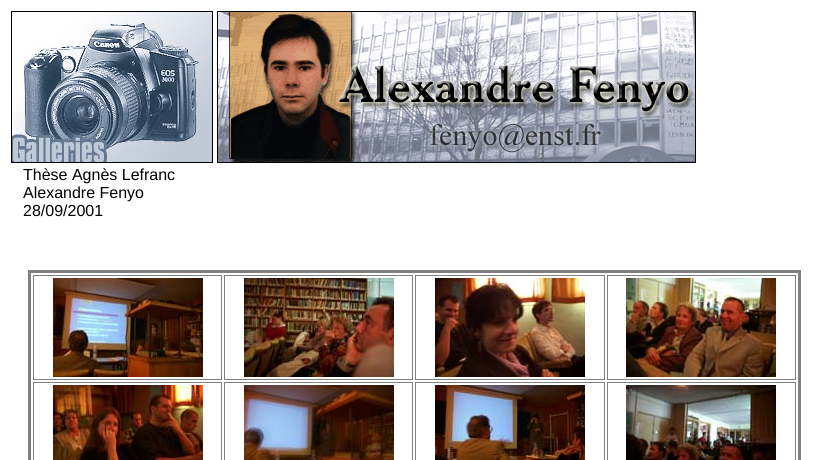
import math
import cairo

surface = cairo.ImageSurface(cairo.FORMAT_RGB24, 829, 460)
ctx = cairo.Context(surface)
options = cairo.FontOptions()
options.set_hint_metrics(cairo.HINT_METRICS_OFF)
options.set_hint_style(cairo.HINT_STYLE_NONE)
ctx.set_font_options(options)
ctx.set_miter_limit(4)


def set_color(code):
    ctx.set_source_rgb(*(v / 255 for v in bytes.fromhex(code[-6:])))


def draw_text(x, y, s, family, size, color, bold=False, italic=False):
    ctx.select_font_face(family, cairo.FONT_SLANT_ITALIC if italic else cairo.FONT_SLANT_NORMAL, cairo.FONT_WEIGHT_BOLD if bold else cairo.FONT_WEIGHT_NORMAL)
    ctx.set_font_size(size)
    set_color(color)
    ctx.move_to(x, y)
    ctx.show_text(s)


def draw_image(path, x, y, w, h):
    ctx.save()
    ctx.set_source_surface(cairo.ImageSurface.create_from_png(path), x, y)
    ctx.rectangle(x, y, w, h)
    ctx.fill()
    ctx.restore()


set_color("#ffffff")
ctx.paint()
ctx.rectangle(11.5, 11.5, 201, 151)
set_color("#000000")
ctx.set_line_width(1)
ctx.stroke()
draw_image("assets/img1.png", 12, 12, 200, 150)
ctx.rectangle(217.5, 11.5, 478, 151)
ctx.stroke()
draw_image("assets/img2.png", 218, 12, 477, 150)
draw_text(23, 180, "Thèse Agnès Lefranc", "Liberation Sans", 16, "#000000")
draw_text(23, 198, "Alexandre Fenyo", "Liberation Sans", 16, "#000000")
draw_text(23, 216, "28/09/2001", "Liberation Sans", 16, "#000000")
ctx.rectangle(29.5, 271.5, 770, 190)
set_color("#808080")
ctx.set_line_width(3)
ctx.stroke()
ctx.rectangle(33.5, 275.5, 188, 104)
ctx.set_line_width(1)
ctx.stroke()
draw_image("assets/img3.png", 53, 278, 150, 99)
ctx.rectangle(224.5, 275.5, 188, 104)
ctx.stroke()
draw_image("assets/img4.png", 244, 278, 150, 99)
ctx.rectangle(415.5, 275.5, 189, 104)
ctx.stroke()
draw_image("assets/img5.png", 435, 278, 150, 99)
ctx.rectangle(607.5, 275.5, 188, 104)
ctx.stroke()
draw_image("assets/img6.png", 626, 278, 150, 99)
ctx.rectangle(33.5, 382.5, 188, 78)
ctx.stroke()
draw_image("assets/img7.png", 53, 385, 150, 75)
ctx.rectangle(224.5, 382.5, 188, 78)
ctx.stroke()
draw_image("assets/img8.png", 244, 385, 150, 75)
ctx.rectangle(415.5, 382.5, 189, 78)
ctx.stroke()
draw_image("assets/img9.png", 435, 385, 150, 75)
ctx.rectangle(607.5, 382.5, 188, 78)
ctx.stroke()
draw_image("assets/img10.png", 626, 385, 150, 75)
surface.write_to_png("output.png")
